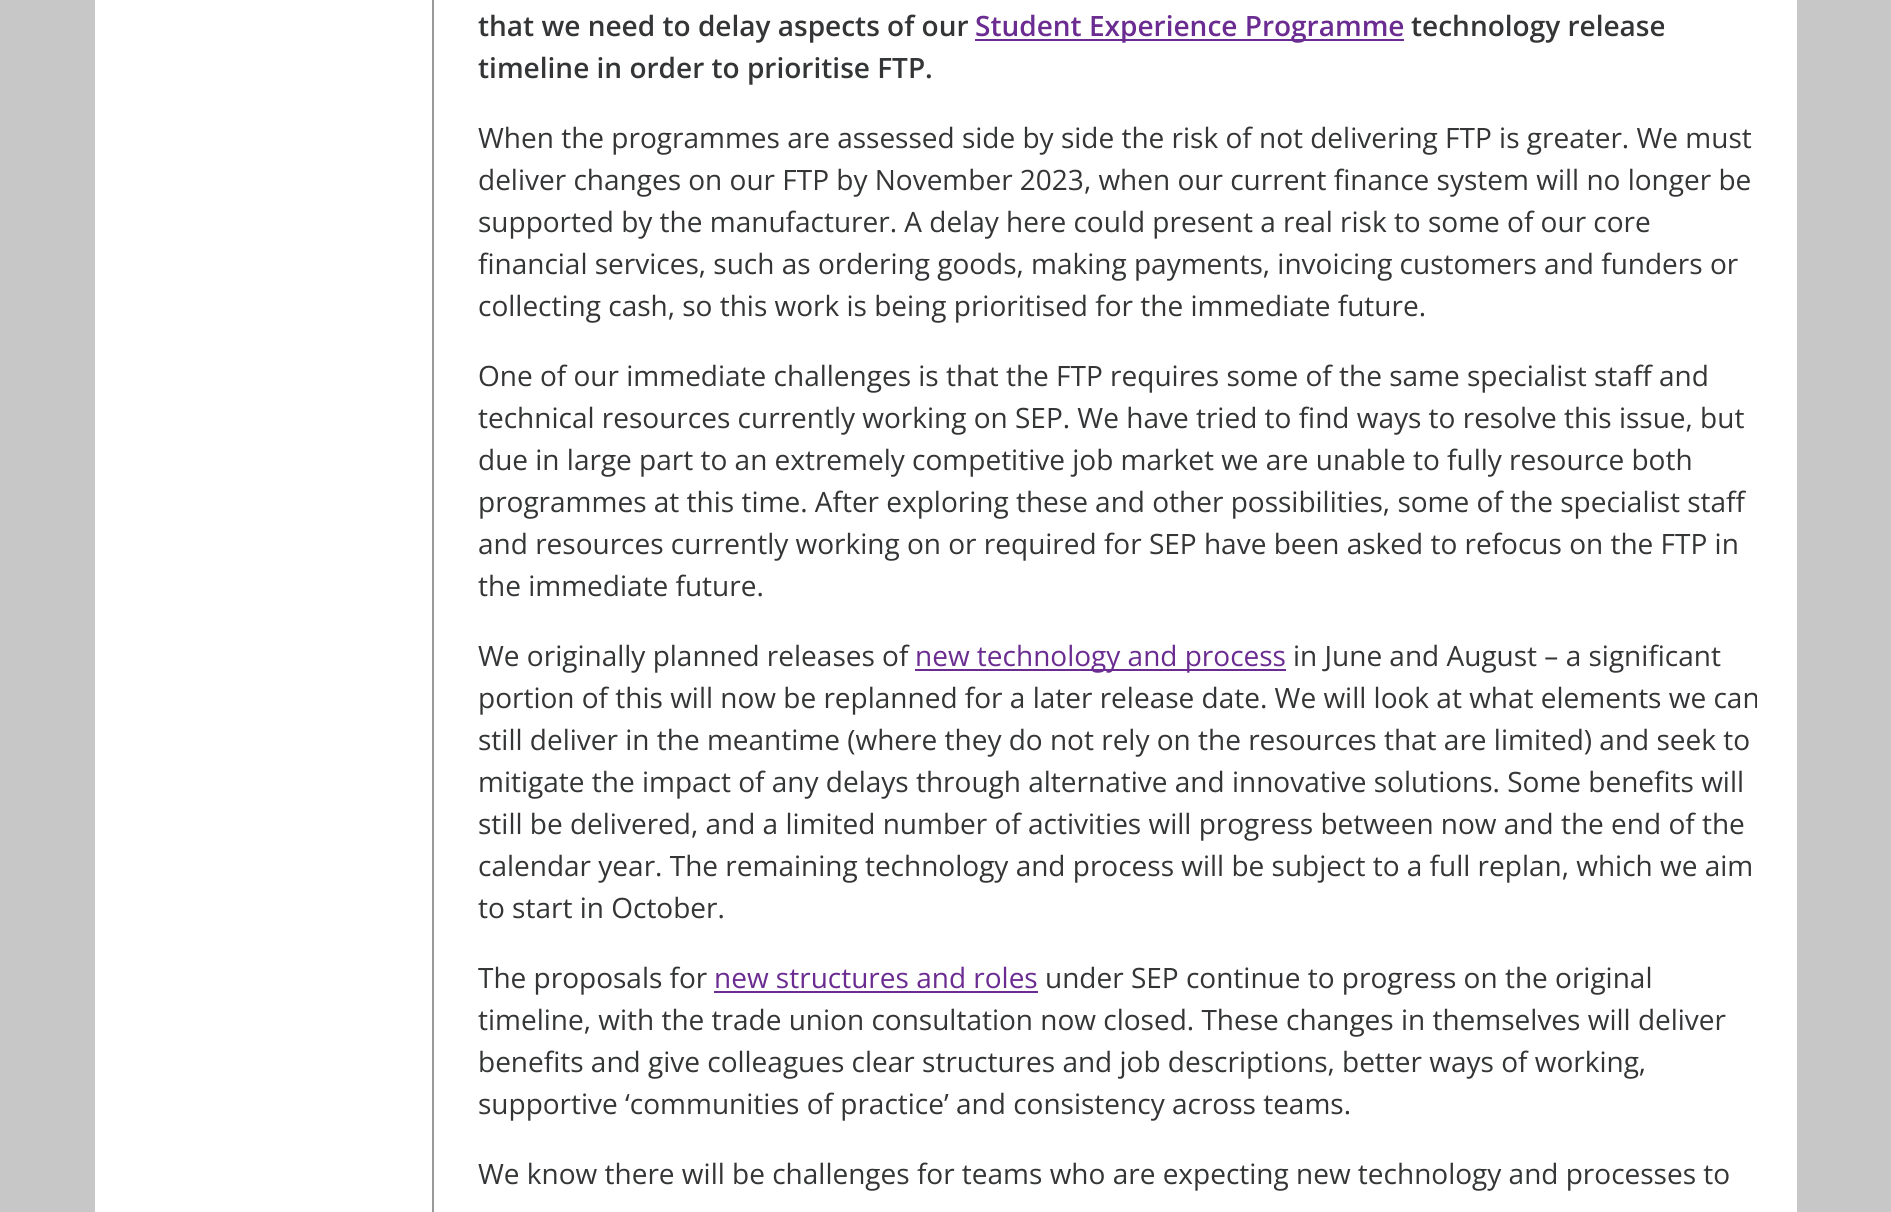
import math
import cairo

surface = cairo.ImageSurface(cairo.FORMAT_RGB24, 1891, 1212)
ctx = cairo.Context(surface)
options = cairo.FontOptions()
options.set_hint_metrics(cairo.HINT_METRICS_OFF)
options.set_hint_style(cairo.HINT_STYLE_NONE)
ctx.set_font_options(options)
ctx.set_miter_limit(4)


def set_color(code):
    ctx.set_source_rgb(*(v / 255 for v in bytes.fromhex(code[-6:])))


def draw_text(x, y, s, family, size, color, bold=False, italic=False):
    ctx.select_font_face(family, cairo.FONT_SLANT_ITALIC if italic else cairo.FONT_SLANT_NORMAL, cairo.FONT_WEIGHT_BOLD if bold else cairo.FONT_WEIGHT_NORMAL)
    ctx.set_font_size(size)
    set_color(color)
    ctx.move_to(x, y)
    ctx.show_text(s)


def fill_rect(x, y, w, h, color):
    set_color(color)
    ctx.rectangle(x, y, w, h)
    ctx.fill()


set_color("#c7c7c7")
ctx.paint()
fill_rect(95, 0, 1702, 1212, "#ffffff")
fill_rect(432, 0, 2, 1212, "#999999")
draw_text(478, 36, "that we need to delay aspects of our", "Open Sans SemiBold", 28, "#343536")
fill_rect(975, 39, 429, 2, "#6b2c91")
draw_text(975, 36, "Student Experience Programme", "Open Sans SemiBold", 28, "#6b2c91")
draw_text(1411, 36, "technology release", "Open Sans SemiBold", 28, "#343536")
draw_text(478, 78, "timeline in order to prioritise FTP.", "Open Sans SemiBold", 28, "#343536")
draw_text(478, 148, "When the programmes are assessed side by side the risk of not delivering FTP is greater. We must", "Open Sans", 28, "#343536")
draw_text(478, 190, "deliver changes on our FTP by November 2023, when our current finance system will no longer be", "Open Sans", 28, "#343536")
draw_text(478, 232, "supported by the manufacturer. A delay here could present a real risk to some of our core", "Open Sans", 28, "#343536")
draw_text(478, 274, "financial services, such as ordering goods, making payments, invoicing customers and funders or", "Open Sans", 28, "#343536")
draw_text(478, 316, "collecting cash, so this work is being prioritised for the immediate future.", "Open Sans", 28, "#343536")
draw_text(478, 386, "One of our immediate challenges is that the FTP requires some of the same specialist staff and", "Open Sans", 28, "#343536")
draw_text(478, 428, "technical resources currently working on SEP. We have tried to find ways to resolve this issue, but", "Open Sans", 28, "#343536")
draw_text(478, 470, "due in large part to an extremely competitive job market we are unable to fully resource both", "Open Sans", 28, "#343536")
draw_text(478, 512, "programmes at this time. After exploring these and other possibilities, some of the specialist staff", "Open Sans", 28, "#343536")
draw_text(478, 554, "and resources currently working on or required for SEP have been asked to refocus on the FTP in", "Open Sans", 28, "#343536")
draw_text(478, 596, "the immediate future.", "Open Sans", 28, "#343536")
draw_text(478, 666, "We originally planned releases of", "Open Sans", 28, "#343536")
fill_rect(915, 669, 371, 2, "#6b2c91")
draw_text(915, 666, "new technology and process", "Open Sans", 28, "#6b2c91")
draw_text(1293, 666, "in June and August – a significant", "Open Sans", 28, "#343536")
draw_text(478, 708, "portion of this will now be replanned for a later release date. We will look at what elements we can", "Open Sans", 28, "#343536")
draw_text(478, 750, "still deliver in the meantime (where they do not rely on the resources that are limited) and seek to", "Open Sans", 28, "#343536")
draw_text(478, 792, "mitigate the impact of any delays through alternative and innovative solutions. Some benefits will", "Open Sans", 28, "#343536")
draw_text(478, 834, "still be delivered, and a limited number of activities will progress between now and the end of the", "Open Sans", 28, "#343536")
draw_text(478, 876, "calendar year. The remaining technology and process will be subject to a full replan, which we aim", "Open Sans", 28, "#343536")
draw_text(478, 918, "to start in October.", "Open Sans", 28, "#343536")
draw_text(478, 988, "The proposals for", "Open Sans", 28, "#343536")
draw_text(714, 988, "new structures and roles", "Open Sans", 28, "#6b2c91")
fill_rect(714, 991, 324, 2, "#6b2c91")
draw_text(1045, 988, "under SEP continue to progress on the original", "Open Sans", 28, "#343536")
draw_text(478, 1030, "timeline, with the trade union consultation now closed. These changes in themselves will deliver", "Open Sans", 28, "#343536")
draw_text(478, 1072, "benefits and give colleagues clear structures and job descriptions, better ways of working,", "Open Sans", 28, "#343536")
draw_text(478, 1114, "supportive ‘communities of practice’ and consistency across teams.", "Open Sans", 28, "#343536")
draw_text(478, 1184, "We know there will be challenges for teams who are expecting new technology and processes to", "Open Sans", 28, "#343536")
surface.write_to_png("output.png")
